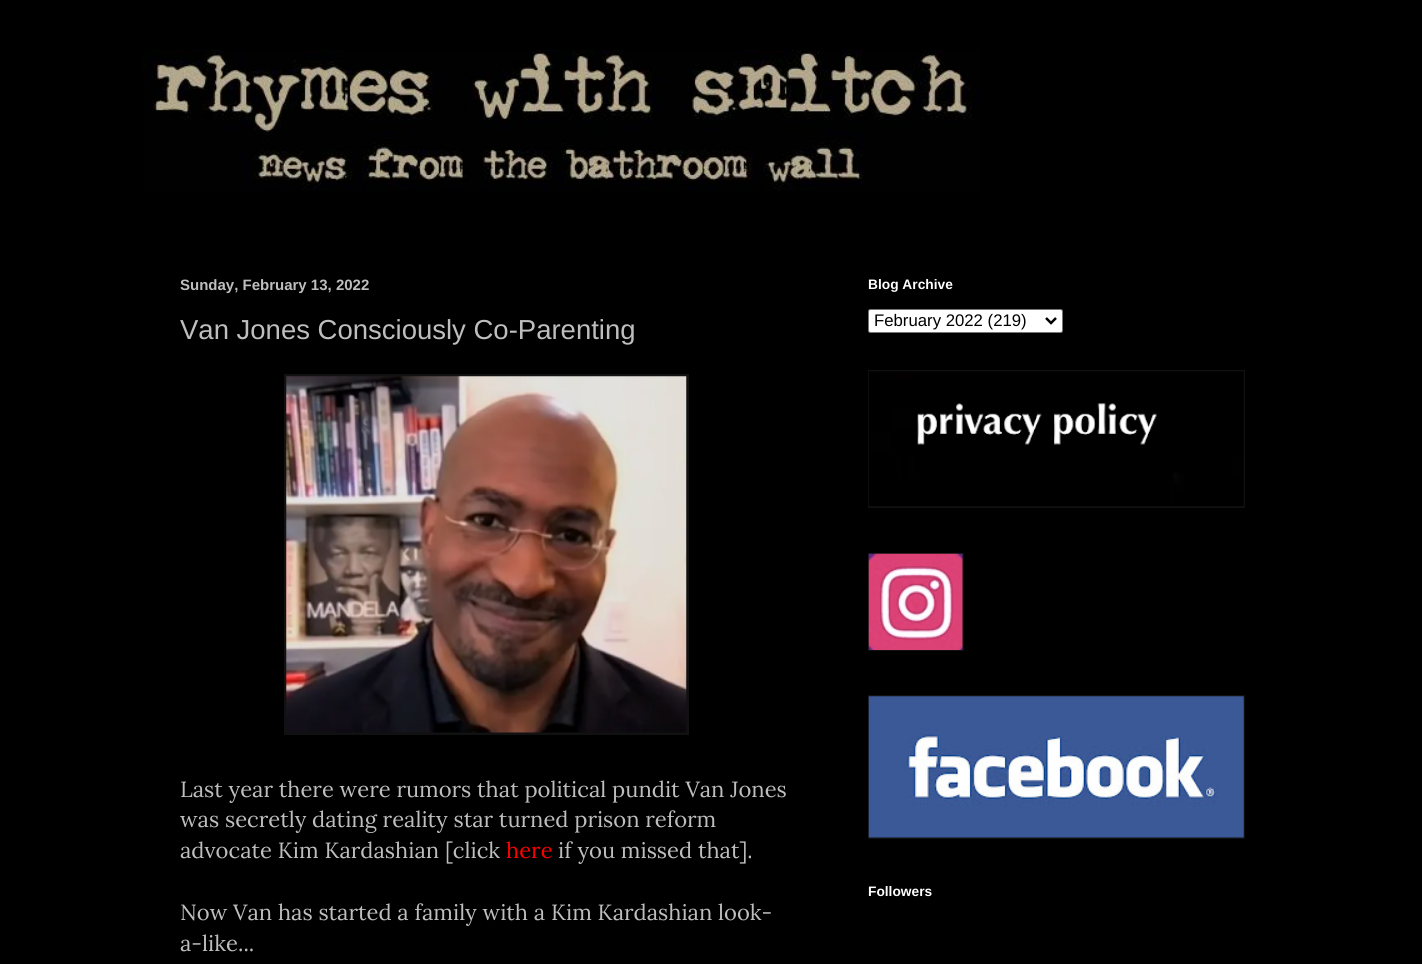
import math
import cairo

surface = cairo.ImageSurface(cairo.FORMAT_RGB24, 1422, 964)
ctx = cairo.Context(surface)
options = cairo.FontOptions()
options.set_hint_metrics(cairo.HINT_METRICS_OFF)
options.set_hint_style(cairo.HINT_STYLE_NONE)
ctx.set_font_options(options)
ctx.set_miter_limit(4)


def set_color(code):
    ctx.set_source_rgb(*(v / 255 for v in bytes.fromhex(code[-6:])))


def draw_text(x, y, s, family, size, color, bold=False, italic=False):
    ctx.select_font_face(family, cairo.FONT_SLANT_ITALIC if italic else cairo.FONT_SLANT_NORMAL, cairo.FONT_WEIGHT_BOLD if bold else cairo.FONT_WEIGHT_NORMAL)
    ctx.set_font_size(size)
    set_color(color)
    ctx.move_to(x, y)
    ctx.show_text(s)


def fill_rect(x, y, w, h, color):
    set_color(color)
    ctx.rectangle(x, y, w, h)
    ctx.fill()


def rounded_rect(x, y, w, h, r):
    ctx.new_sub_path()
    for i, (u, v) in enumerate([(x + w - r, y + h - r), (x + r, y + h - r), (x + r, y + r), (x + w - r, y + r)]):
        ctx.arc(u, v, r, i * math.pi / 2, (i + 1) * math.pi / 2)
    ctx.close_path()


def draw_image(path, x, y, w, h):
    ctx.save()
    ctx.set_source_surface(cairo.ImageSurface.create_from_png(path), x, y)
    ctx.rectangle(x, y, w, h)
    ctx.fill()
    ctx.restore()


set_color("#000000")
ctx.paint()
draw_image("assets/img1.png", 143, 50, 838, 141)
draw_text(180, 290, "Sunday, February 13, 2022", "Liberation Sans", 15, "#bebebe", bold=True)
draw_text(180, 339, "Van Jones Consciously Co-Parenting", "Liberation Sans", 27.5, "#bebebe")
fill_rect(284, 374, 405, 361, "#111111")
draw_image("assets/img2.png", 286, 376, 401, 357)
draw_text(180, 797, "Last year there were rumors that political pundit Van Jones", "Lora", 22, "#bebebe")
draw_text(180, 827, "was secretly dating reality star turned prison reform", "Lora", 22, "#bebebe")
draw_text(180, 858, "advocate Kim Kardashian [click", "Lora", 22, "#bebebe")
draw_text(506, 858, "here", "Lora", 22, "#ff0000")
draw_text(558, 858, "if you missed that].", "Lora", 22, "#bebebe")
draw_text(180, 920, "Now Van has started a family with a Kim Kardashian look-", "Lora", 22, "#bebebe")
draw_text(180, 951, "a-like...", "Lora", 22, "#bebebe")
draw_text(868, 289, "Blog Archive", "Liberation Sans", 13.75, "#ffffff", bold=True)
rounded_rect(868.5, 309.5, 194, 23, 2)
ctx.fill_preserve()
set_color("#767676")
ctx.set_line_width(1)
ctx.stroke()
ctx.new_path()
ctx.move_to(1046, 318)
ctx.line_to(1051, 323)
ctx.line_to(1056, 318)
set_color("#000000")
ctx.set_line_width(2.5)
ctx.stroke()
draw_text(874, 326, "February 2022 (219)", "Liberation Sans", 16.75, "#000000")
fill_rect(868, 370, 377, 138, "#111111")
draw_image("assets/img3.png", 868, 371, 376, 136)
fill_rect(868, 553, 96, 98, "#111111")
draw_image("assets/img4.png", 868, 553, 95, 97)
fill_rect(868, 695, 377, 144, "#111111")
draw_image("assets/img5.png", 868, 696, 376, 142)
draw_text(868, 896, "Followers", "Liberation Sans", 13.75, "#ffffff", bold=True)
surface.write_to_png("output.png")
